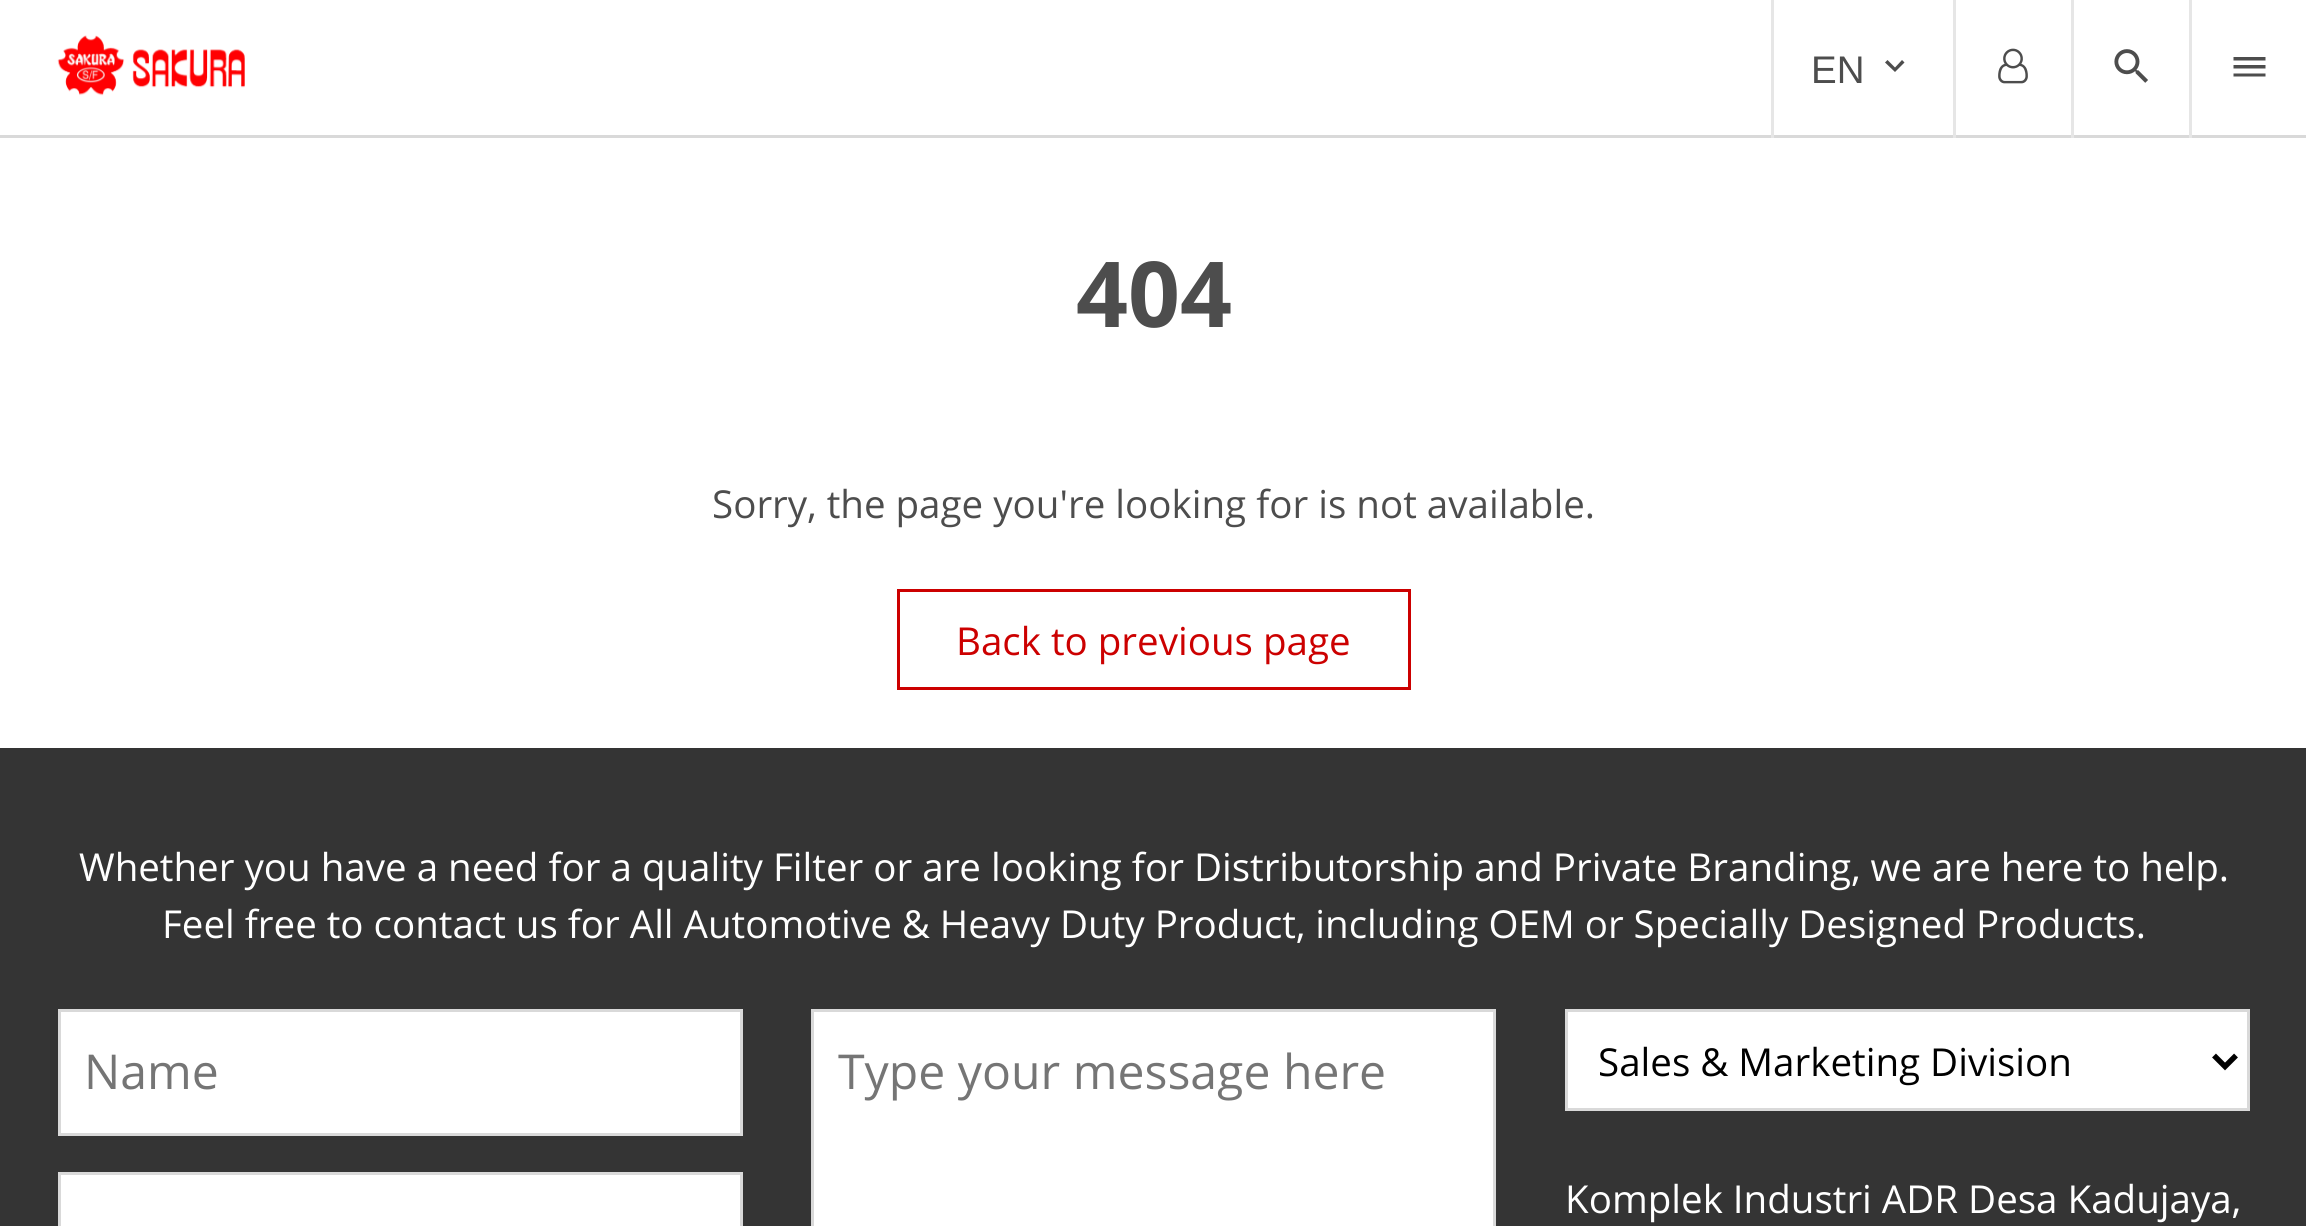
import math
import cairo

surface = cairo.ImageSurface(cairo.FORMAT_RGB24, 2306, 1226)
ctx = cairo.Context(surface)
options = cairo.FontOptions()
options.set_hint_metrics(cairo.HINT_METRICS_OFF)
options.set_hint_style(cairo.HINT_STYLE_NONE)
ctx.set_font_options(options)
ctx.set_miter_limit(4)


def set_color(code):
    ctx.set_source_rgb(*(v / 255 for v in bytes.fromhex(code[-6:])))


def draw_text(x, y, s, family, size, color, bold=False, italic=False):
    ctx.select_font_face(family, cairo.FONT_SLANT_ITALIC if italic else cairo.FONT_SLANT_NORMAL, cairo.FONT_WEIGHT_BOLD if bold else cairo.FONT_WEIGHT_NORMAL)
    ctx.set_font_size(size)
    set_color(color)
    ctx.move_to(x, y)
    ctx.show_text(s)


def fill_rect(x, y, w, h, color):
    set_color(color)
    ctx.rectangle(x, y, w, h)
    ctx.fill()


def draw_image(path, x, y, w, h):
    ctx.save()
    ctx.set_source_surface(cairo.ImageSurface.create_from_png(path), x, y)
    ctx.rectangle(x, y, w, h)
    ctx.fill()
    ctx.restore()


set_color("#ffffff")
ctx.paint()
fill_rect(0, 135, 2306, 3, "#d9d9d9")
draw_image("assets/img1.png", 57, 35, 188, 61)
fill_rect(1771, 0, 3, 138, "#e6e6e6")
draw_text(1811, 83, "EN", "Liberation Sans", 38.5, "#4d4d4d")
ctx.new_path()
ctx.move_to(1887.5, 60)
ctx.line_to(1895, 67.5)
ctx.line_to(1902, 60)
ctx.line_to(1904.5, 62.5)
ctx.line_to(1895, 72)
ctx.line_to(1885, 62.5)
ctx.close_path()
ctx.fill()
fill_rect(1953, 0, 3, 138, "#e6e6e6")
draw_image("assets/img2.png", 1998, 48, 30, 36)
fill_rect(2071, 0, 3, 138, "#e6e6e6")
draw_image("assets/img3.png", 2114, 49, 34, 34)
fill_rect(2189, 0, 3, 138, "#e6e6e6")
set_color("#4d4d4d")
ctx.new_path()
ctx.move_to(2233.5, 57)
ctx.line_to(2265.5, 57)
ctx.line_to(2265.5, 60.5)
ctx.line_to(2233.5, 60.5)
ctx.close_path()
ctx.move_to(2233.5, 65)
ctx.line_to(2265.5, 65)
ctx.line_to(2265.5, 68.5)
ctx.line_to(2233.5, 68.5)
ctx.close_path()
ctx.move_to(2233.5, 73.5)
ctx.line_to(2265.5, 73.5)
ctx.line_to(2265.5, 76.5)
ctx.line_to(2233.5, 76.5)
ctx.close_path()
ctx.fill()
draw_text(1076, 327, "404", "Open Sans", 91, "#4d4d4d", bold=True)
draw_text(712, 518, "Sorry, the page you're looking for is not available.", "Open Sans", 38.5, "#4d4d4d")
ctx.rectangle(898.5, 590.5, 511, 98)
set_color("#cc0000")
ctx.set_line_width(3)
ctx.stroke()
draw_text(956, 655, "Back to previous page", "Open Sans", 38.5, "#cc0000")
fill_rect(0, 748, 2306, 478, "#343434")
draw_text(79, 881, "Whether you have a need for a quality Filter or are looking for Distributorship and Private Branding, we are here to help.", "Open Sans", 38.5, "#ffffff")
draw_text(162, 938, "Feel free to contact us for All Automotive & Heavy Duty Product, including OEM or Specially Designed Products.", "Open Sans", 38.5, "#ffffff")
ctx.rectangle(59.5, 1010.5, 682, 124)
ctx.fill_preserve()
set_color("#d9d9d9")
ctx.stroke()
draw_text(84, 1089, "Name", "Open Sans", 48.1, "#757575")
set_color("#ffffff")
ctx.rectangle(59.5, 1173.5, 682, 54)
ctx.fill_preserve()
set_color("#d9d9d9")
ctx.stroke()
set_color("#ffffff")
ctx.rectangle(812.5, 1010.5, 682, 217)
ctx.fill_preserve()
set_color("#d9d9d9")
ctx.stroke()
draw_text(838, 1089, "Type your message here", "Open Sans", 48.1, "#757575")
set_color("#ffffff")
ctx.rectangle(1566.5, 1010.5, 682, 99)
ctx.fill_preserve()
set_color("#d9d9d9")
ctx.stroke()
ctx.new_path()
ctx.move_to(2214, 1055.5)
ctx.line_to(2225, 1066.5)
ctx.line_to(2236, 1055.5)
set_color("#000000")
ctx.set_line_width(5.5)
ctx.stroke()
draw_text(1598, 1076, "Sales & Marketing Division", "Open Sans", 38.5, "#000000")
draw_text(1565, 1213, "Komplek Industri ADR Desa Kadujaya,", "Open Sans", 38.5, "#ffffff")
surface.write_to_png("output.png")
